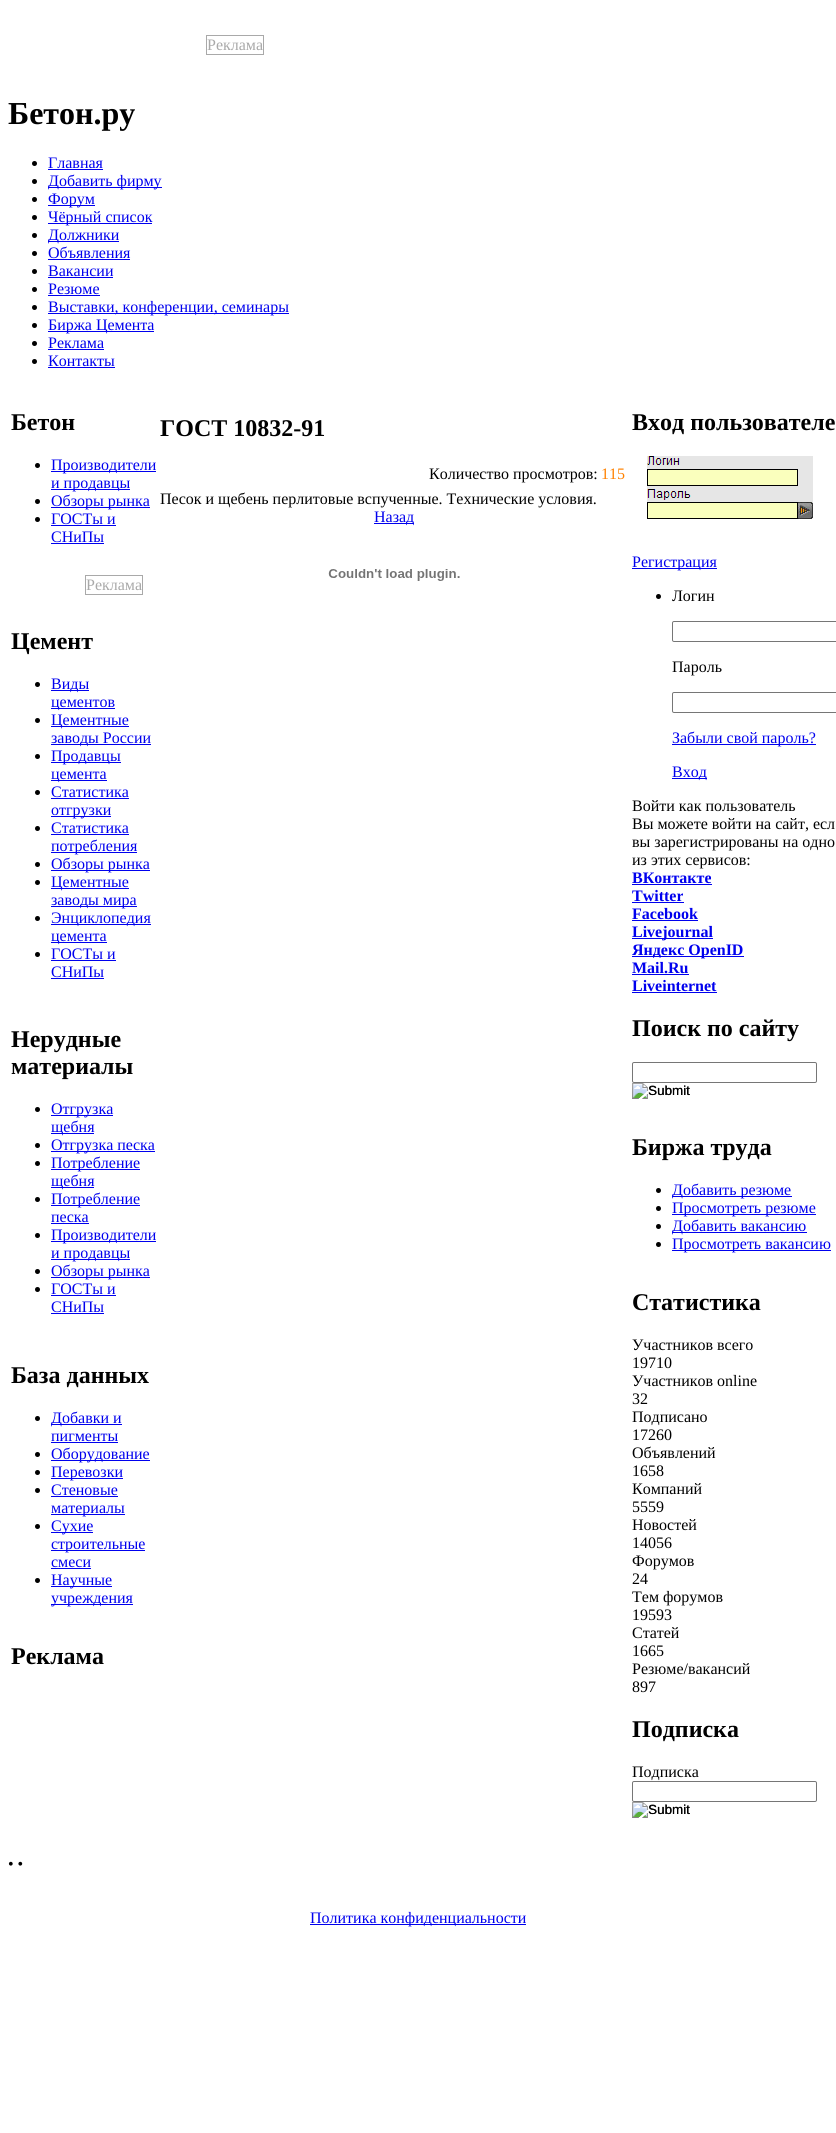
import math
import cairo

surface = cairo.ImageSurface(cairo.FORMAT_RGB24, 836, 2133)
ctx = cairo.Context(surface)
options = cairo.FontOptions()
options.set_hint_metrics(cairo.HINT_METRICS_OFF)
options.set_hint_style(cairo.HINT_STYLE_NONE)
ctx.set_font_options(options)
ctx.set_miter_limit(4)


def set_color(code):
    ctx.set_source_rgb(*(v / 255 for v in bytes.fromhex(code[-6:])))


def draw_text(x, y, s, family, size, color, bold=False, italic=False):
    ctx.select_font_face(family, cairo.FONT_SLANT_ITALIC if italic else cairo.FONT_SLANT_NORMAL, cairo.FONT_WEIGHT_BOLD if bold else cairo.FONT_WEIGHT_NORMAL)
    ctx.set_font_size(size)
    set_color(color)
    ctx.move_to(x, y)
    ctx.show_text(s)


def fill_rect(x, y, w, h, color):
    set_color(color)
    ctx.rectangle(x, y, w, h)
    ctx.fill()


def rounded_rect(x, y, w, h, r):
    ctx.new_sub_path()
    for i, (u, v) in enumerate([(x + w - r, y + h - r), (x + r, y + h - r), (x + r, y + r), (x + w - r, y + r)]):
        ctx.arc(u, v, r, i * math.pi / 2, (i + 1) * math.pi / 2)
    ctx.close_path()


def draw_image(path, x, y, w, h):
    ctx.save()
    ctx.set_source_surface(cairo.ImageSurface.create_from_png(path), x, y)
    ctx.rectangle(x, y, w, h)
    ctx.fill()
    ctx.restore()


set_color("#ffffff")
ctx.paint()
ctx.rectangle(206.5, 35.5, 57, 19)
set_color("#a9a9a9")
ctx.set_line_width(1)
ctx.stroke()
draw_text(207, 50, "Реклама", "Liberation Serif", 16, "#a9a9a9")
draw_text(8, 124, "Бетон.ру", "Liberation Serif", 32, "#000000", bold=True)
ctx.new_path()
ctx.arc(34.5, 163.5, 2.5, 0, 2 * math.pi)
ctx.fill()
draw_text(48, 168, "Главная", "Liberation Serif", 16, "#0000ee")
fill_rect(48, 169, 55, 1, "#0000ee")
set_color("#000000")
ctx.new_path()
ctx.arc(34.5, 181.5, 2.5, 0, 2 * math.pi)
ctx.fill()
fill_rect(48, 187, 114, 1, "#0000ee")
draw_text(48, 186, "Добавить фирму", "Liberation Serif", 16, "#0000ee")
set_color("#000000")
ctx.new_path()
ctx.arc(34.5, 199.5, 2.5, 0, 2 * math.pi)
ctx.fill()
fill_rect(48, 205, 47, 1, "#0000ee")
draw_text(48, 204, "Форум", "Liberation Serif", 16, "#0000ee")
set_color("#000000")
ctx.new_path()
ctx.arc(34.5, 217.5, 2.5, 0, 2 * math.pi)
ctx.fill()
fill_rect(48, 223, 104, 1, "#0000ee")
draw_text(48, 222, "Чёрный список", "Liberation Serif", 16, "#0000ee")
set_color("#000000")
ctx.new_path()
ctx.arc(34.5, 235.5, 2.5, 0, 2 * math.pi)
ctx.fill()
fill_rect(48, 241, 71, 1, "#0000ee")
draw_text(48, 240, "Должники", "Liberation Serif", 16, "#0000ee")
set_color("#000000")
ctx.new_path()
ctx.arc(34.5, 253.5, 2.5, 0, 2 * math.pi)
ctx.fill()
draw_text(48, 258, "Объявления", "Liberation Serif", 16, "#0000ee")
fill_rect(48, 259, 82, 1, "#0000ee")
set_color("#000000")
ctx.new_path()
ctx.arc(34.5, 271.5, 2.5, 0, 2 * math.pi)
ctx.fill()
draw_text(48, 276, "Вакансии", "Liberation Serif", 16, "#0000ee")
fill_rect(48, 277, 65, 1, "#0000ee")
set_color("#000000")
ctx.new_path()
ctx.arc(34.5, 289.5, 2.5, 0, 2 * math.pi)
ctx.fill()
draw_text(48, 294, "Резюме", "Liberation Serif", 16, "#0000ee")
fill_rect(48, 295, 52, 1, "#0000ee")
set_color("#000000")
ctx.new_path()
ctx.arc(34.5, 307.5, 2.5, 0, 2 * math.pi)
ctx.fill()
fill_rect(48, 313, 241, 1, "#0000ee")
draw_text(48, 312, "Выставки, конференции, семинары", "Liberation Serif", 16, "#0000ee")
set_color("#000000")
ctx.new_path()
ctx.arc(34.5, 325.5, 2.5, 0, 2 * math.pi)
ctx.fill()
fill_rect(48, 331, 106, 1, "#0000ee")
draw_text(48, 330, "Биржа Цемента", "Liberation Serif", 16, "#0000ee")
set_color("#000000")
ctx.new_path()
ctx.arc(34.5, 343.5, 2.5, 0, 2 * math.pi)
ctx.fill()
draw_text(48, 348, "Реклама", "Liberation Serif", 16, "#0000ee")
fill_rect(48, 349, 56, 1, "#0000ee")
set_color("#000000")
ctx.new_path()
ctx.arc(34.5, 361.5, 2.5, 0, 2 * math.pi)
ctx.fill()
draw_text(48, 366, "Контакты", "Liberation Serif", 16, "#0000ee")
fill_rect(48, 367, 67, 1, "#0000ee")
draw_text(11, 430, "Бетон", "Liberation Serif", 24, "#000000", bold=True)
ctx.new_path()
ctx.arc(37.5, 465.5, 2.5, 0, 2 * math.pi)
ctx.fill()
fill_rect(51, 471, 105, 1, "#0000ee")
draw_text(51, 470, "Производители", "Liberation Serif", 16, "#0000ee")
fill_rect(51, 489, 79, 1, "#0000ee")
draw_text(51, 488, "и продавцы", "Liberation Serif", 16, "#0000ee")
set_color("#000000")
ctx.new_path()
ctx.arc(37.5, 501.5, 2.5, 0, 2 * math.pi)
ctx.fill()
fill_rect(51, 507, 99, 1, "#0000ee")
draw_text(51, 506, "Обзоры рынка", "Liberation Serif", 16, "#0000ee")
set_color("#000000")
ctx.new_path()
ctx.arc(37.5, 519.5, 2.5, 0, 2 * math.pi)
ctx.fill()
draw_text(51, 524, "ГОСТы и", "Liberation Serif", 16, "#0000ee")
fill_rect(51, 525, 65, 1, "#0000ee")
draw_text(51, 542, "СНиПы", "Liberation Serif", 16, "#0000ee")
fill_rect(51, 543, 53, 1, "#0000ee")
ctx.rectangle(85.5, 575.5, 57, 19)
set_color("#a9a9a9")
ctx.stroke()
draw_text(86, 590, "Реклама", "Liberation Serif", 16, "#a9a9a9")
draw_text(11, 649, "Цемент", "Liberation Serif", 24, "#000000", bold=True)
ctx.new_path()
ctx.arc(37.5, 684.5, 2.5, 0, 2 * math.pi)
ctx.fill()
fill_rect(51, 690, 38, 1, "#0000ee")
draw_text(51, 689, "Виды", "Liberation Serif", 16, "#0000ee")
fill_rect(51, 708, 64, 1, "#0000ee")
draw_text(51, 707, "цементов", "Liberation Serif", 16, "#0000ee")
set_color("#000000")
ctx.new_path()
ctx.arc(37.5, 720.5, 2.5, 0, 2 * math.pi)
ctx.fill()
fill_rect(51, 726, 78, 1, "#0000ee")
draw_text(51, 725, "Цементные", "Liberation Serif", 16, "#0000ee")
fill_rect(51, 744, 100, 1, "#0000ee")
draw_text(51, 743, "заводы России", "Liberation Serif", 16, "#0000ee")
set_color("#000000")
ctx.new_path()
ctx.arc(37.5, 756.5, 2.5, 0, 2 * math.pi)
ctx.fill()
fill_rect(51, 762, 70, 1, "#0000ee")
draw_text(51, 761, "Продавцы", "Liberation Serif", 16, "#0000ee")
fill_rect(51, 780, 56, 1, "#0000ee")
draw_text(51, 779, "цемента", "Liberation Serif", 16, "#0000ee")
set_color("#000000")
ctx.new_path()
ctx.arc(37.5, 792.5, 2.5, 0, 2 * math.pi)
ctx.fill()
draw_text(51, 797, "Статистика", "Liberation Serif", 16, "#0000ee")
fill_rect(51, 798, 78, 1, "#0000ee")
fill_rect(51, 816, 60, 1, "#0000ee")
draw_text(51, 815, "отгрузки", "Liberation Serif", 16, "#0000ee")
set_color("#000000")
ctx.new_path()
ctx.arc(37.5, 828.5, 2.5, 0, 2 * math.pi)
ctx.fill()
draw_text(51, 833, "Статистика", "Liberation Serif", 16, "#0000ee")
fill_rect(51, 834, 78, 1, "#0000ee")
fill_rect(51, 852, 86, 1, "#0000ee")
draw_text(51, 851, "потребления", "Liberation Serif", 16, "#0000ee")
set_color("#000000")
ctx.new_path()
ctx.arc(37.5, 864.5, 2.5, 0, 2 * math.pi)
ctx.fill()
fill_rect(51, 870, 99, 1, "#0000ee")
draw_text(51, 869, "Обзоры рынка", "Liberation Serif", 16, "#0000ee")
set_color("#000000")
ctx.new_path()
ctx.arc(37.5, 882.5, 2.5, 0, 2 * math.pi)
ctx.fill()
fill_rect(51, 888, 78, 1, "#0000ee")
draw_text(51, 887, "Цементные", "Liberation Serif", 16, "#0000ee")
fill_rect(51, 906, 86, 1, "#0000ee")
draw_text(51, 905, "заводы мира", "Liberation Serif", 16, "#0000ee")
set_color("#000000")
ctx.new_path()
ctx.arc(37.5, 918.5, 2.5, 0, 2 * math.pi)
ctx.fill()
fill_rect(51, 924, 100, 1, "#0000ee")
draw_text(51, 923, "Энциклопедия", "Liberation Serif", 16, "#0000ee")
fill_rect(51, 942, 56, 1, "#0000ee")
draw_text(51, 941, "цемента", "Liberation Serif", 16, "#0000ee")
set_color("#000000")
ctx.new_path()
ctx.arc(37.5, 954.5, 2.5, 0, 2 * math.pi)
ctx.fill()
draw_text(51, 959, "ГОСТы и", "Liberation Serif", 16, "#0000ee")
fill_rect(51, 960, 65, 1, "#0000ee")
draw_text(51, 977, "СНиПы", "Liberation Serif", 16, "#0000ee")
fill_rect(51, 978, 53, 1, "#0000ee")
draw_text(11, 1047, "Нерудные", "Liberation Serif", 24, "#000000", bold=True)
draw_text(11, 1074, "материалы", "Liberation Serif", 24, "#000000", bold=True)
ctx.new_path()
ctx.arc(37.5, 1109.5, 2.5, 0, 2 * math.pi)
ctx.fill()
fill_rect(51, 1115, 62, 1, "#0000ee")
draw_text(51, 1114, "Отгрузка", "Liberation Serif", 16, "#0000ee")
fill_rect(51, 1133, 43, 1, "#0000ee")
draw_text(51, 1132, "щебня", "Liberation Serif", 16, "#0000ee")
set_color("#000000")
ctx.new_path()
ctx.arc(37.5, 1145.5, 2.5, 0, 2 * math.pi)
ctx.fill()
fill_rect(51, 1151, 104, 1, "#0000ee")
draw_text(51, 1150, "Отгрузка песка", "Liberation Serif", 16, "#0000ee")
set_color("#000000")
ctx.new_path()
ctx.arc(37.5, 1163.5, 2.5, 0, 2 * math.pi)
ctx.fill()
fill_rect(51, 1169, 89, 1, "#0000ee")
draw_text(51, 1168, "Потребление", "Liberation Serif", 16, "#0000ee")
fill_rect(51, 1187, 43, 1, "#0000ee")
draw_text(51, 1186, "щебня", "Liberation Serif", 16, "#0000ee")
set_color("#000000")
ctx.new_path()
ctx.arc(37.5, 1199.5, 2.5, 0, 2 * math.pi)
ctx.fill()
fill_rect(51, 1205, 89, 1, "#0000ee")
draw_text(51, 1204, "Потребление", "Liberation Serif", 16, "#0000ee")
draw_text(51, 1222, "песка", "Liberation Serif", 16, "#0000ee")
fill_rect(51, 1223, 38, 1, "#0000ee")
set_color("#000000")
ctx.new_path()
ctx.arc(37.5, 1235.5, 2.5, 0, 2 * math.pi)
ctx.fill()
fill_rect(51, 1241, 105, 1, "#0000ee")
draw_text(51, 1240, "Производители", "Liberation Serif", 16, "#0000ee")
fill_rect(51, 1259, 79, 1, "#0000ee")
draw_text(51, 1258, "и продавцы", "Liberation Serif", 16, "#0000ee")
set_color("#000000")
ctx.new_path()
ctx.arc(37.5, 1271.5, 2.5, 0, 2 * math.pi)
ctx.fill()
fill_rect(51, 1277, 99, 1, "#0000ee")
draw_text(51, 1276, "Обзоры рынка", "Liberation Serif", 16, "#0000ee")
set_color("#000000")
ctx.new_path()
ctx.arc(37.5, 1289.5, 2.5, 0, 2 * math.pi)
ctx.fill()
draw_text(51, 1294, "ГОСТы и", "Liberation Serif", 16, "#0000ee")
fill_rect(51, 1295, 65, 1, "#0000ee")
draw_text(51, 1312, "СНиПы", "Liberation Serif", 16, "#0000ee")
fill_rect(51, 1313, 53, 1, "#0000ee")
draw_text(11, 1383, "База данных", "Liberation Serif", 24, "#000000", bold=True)
ctx.new_path()
ctx.arc(37.5, 1418.5, 2.5, 0, 2 * math.pi)
ctx.fill()
fill_rect(51, 1424, 71, 1, "#0000ee")
draw_text(51, 1423, "Добавки и", "Liberation Serif", 16, "#0000ee")
draw_text(51, 1441, "пигменты", "Liberation Serif", 16, "#0000ee")
fill_rect(51, 1442, 67, 1, "#0000ee")
set_color("#000000")
ctx.new_path()
ctx.arc(37.5, 1454.5, 2.5, 0, 2 * math.pi)
ctx.fill()
fill_rect(51, 1460, 99, 1, "#0000ee")
draw_text(51, 1459, "Оборудование", "Liberation Serif", 16, "#0000ee")
set_color("#000000")
ctx.new_path()
ctx.arc(37.5, 1472.5, 2.5, 0, 2 * math.pi)
ctx.fill()
fill_rect(51, 1478, 72, 1, "#0000ee")
draw_text(51, 1477, "Перевозки", "Liberation Serif", 16, "#0000ee")
set_color("#000000")
ctx.new_path()
ctx.arc(37.5, 1490.5, 2.5, 0, 2 * math.pi)
ctx.fill()
draw_text(51, 1495, "Стеновые", "Liberation Serif", 16, "#0000ee")
fill_rect(51, 1496, 67, 1, "#0000ee")
fill_rect(51, 1514, 74, 1, "#0000ee")
draw_text(51, 1513, "материалы", "Liberation Serif", 16, "#0000ee")
set_color("#000000")
ctx.new_path()
ctx.arc(37.5, 1526.5, 2.5, 0, 2 * math.pi)
ctx.fill()
fill_rect(51, 1532, 42, 1, "#0000ee")
draw_text(51, 1531, "Сухие", "Liberation Serif", 16, "#0000ee")
fill_rect(51, 1550, 94, 1, "#0000ee")
draw_text(51, 1549, "строительные", "Liberation Serif", 16, "#0000ee")
draw_text(51, 1567, "смеси", "Liberation Serif", 16, "#0000ee")
fill_rect(51, 1568, 40, 1, "#0000ee")
set_color("#000000")
ctx.new_path()
ctx.arc(37.5, 1580.5, 2.5, 0, 2 * math.pi)
ctx.fill()
fill_rect(51, 1586, 61, 1, "#0000ee")
draw_text(51, 1585, "Научные", "Liberation Serif", 16, "#0000ee")
fill_rect(51, 1604, 82, 1, "#0000ee")
draw_text(51, 1603, "учреждения", "Liberation Serif", 16, "#0000ee")
draw_text(11, 1664, "Реклама", "Liberation Serif", 24, "#000000", bold=True)
draw_text(160, 436, "ГОСТ 10832-91", "Liberation Serif", 24, "#000000", bold=True)
draw_text(429, 479, "Количество просмотров:", "Liberation Serif", 16, "#000000")
draw_text(601, 479, "115", "Liberation Serif", 16, "#ff8100")
draw_text(160, 504, "Песок и щебень перлитовые вспученные. Технические условия.", "Liberation Serif", 16, "#000000")
fill_rect(374, 523, 40, 1, "#0000ee")
draw_text(374, 522, "Назад", "Liberation Serif", 16, "#0000ee")
draw_image("assets/img1.png", 328, 569, 132, 12)
draw_text(632, 430, "Вход пользователе", "Liberation Serif", 24, "#000000", bold=True)
draw_image("assets/img2.png", 647, 456, 166, 63)
fill_rect(632, 568, 85, 1, "#0000ee")
draw_text(632, 567, "Регистрация", "Liberation Serif", 16, "#0000ee")
set_color("#000000")
ctx.new_path()
ctx.arc(658.5, 596.5, 2.5, 0, 2 * math.pi)
ctx.fill()
draw_text(672, 601, "Логин", "Liberation Serif", 16, "#000000")
rounded_rect(672.5, 621.5, 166, 20, 1.5)
set_color("#767676")
ctx.stroke()
draw_text(672, 672, "Пароль", "Liberation Serif", 16, "#000000")
rounded_rect(672.5, 692.5, 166, 20, 1.5)
set_color("#767676")
ctx.stroke()
fill_rect(672, 744, 144, 1, "#0000ee")
draw_text(672, 743, "Забыли свой пароль?", "Liberation Serif", 16, "#0000ee")
fill_rect(672, 778, 35, 1, "#0000ee")
draw_text(672, 777, "Вход", "Liberation Serif", 16, "#0000ee")
draw_text(632, 811, "Войти как пользователь", "Liberation Serif", 16, "#000000")
draw_text(632, 829, "Вы можете войти на сайт, есл", "Liberation Serif", 16, "#000000")
draw_text(632, 847, "вы зарегистрированы на одно", "Liberation Serif", 16, "#000000")
draw_text(632, 865, "из этих сервисов:", "Liberation Serif", 16, "#000000")
draw_text(632, 883, "ВКонтакте", "Liberation Serif", 16, "#0000ee", bold=True)
fill_rect(632, 884, 80, 1, "#0000ee")
draw_text(632, 901, "Twitter", "Liberation Serif", 16, "#0000ee", bold=True)
fill_rect(632, 902, 52, 1, "#0000ee")
draw_text(632, 919, "Facebook", "Liberation Serif", 16, "#0000ee", bold=True)
fill_rect(632, 920, 66, 1, "#0000ee")
fill_rect(632, 938, 81, 1, "#0000ee")
draw_text(632, 937, "Livejournal", "Liberation Serif", 16, "#0000ee", bold=True)
fill_rect(632, 956, 112, 1, "#0000ee")
draw_text(632, 955, "Яндекс OpenID", "Liberation Serif", 16, "#0000ee", bold=True)
draw_text(632, 973, "Mail.Ru", "Liberation Serif", 16, "#0000ee", bold=True)
fill_rect(632, 974, 57, 1, "#0000ee")
draw_text(632, 991, "Liveinternet", "Liberation Serif", 16, "#0000ee", bold=True)
fill_rect(632, 992, 85, 1, "#0000ee")
draw_text(632, 1036, "Поиск по сайту", "Liberation Serif", 24, "#000000", bold=True)
rounded_rect(632.5, 1062.5, 184, 20, 1.5)
set_color("#767676")
ctx.stroke()
draw_image("assets/img3.png", 632, 1083, 58, 16)
draw_text(648, 1095, "Submit", "Liberation Sans", 13.5, "#000000")
draw_text(632, 1155, "Биржа труда", "Liberation Serif", 24, "#000000", bold=True)
ctx.new_path()
ctx.arc(658.5, 1190.5, 2.5, 0, 2 * math.pi)
ctx.fill()
fill_rect(672, 1196, 120, 1, "#0000ee")
draw_text(672, 1195, "Добавить резюме", "Liberation Serif", 16, "#0000ee")
set_color("#000000")
ctx.new_path()
ctx.arc(658.5, 1208.5, 2.5, 0, 2 * math.pi)
ctx.fill()
fill_rect(672, 1214, 144, 1, "#0000ee")
draw_text(672, 1213, "Просмотреть резюме", "Liberation Serif", 16, "#0000ee")
set_color("#000000")
ctx.new_path()
ctx.arc(658.5, 1226.5, 2.5, 0, 2 * math.pi)
ctx.fill()
fill_rect(672, 1232, 135, 1, "#0000ee")
draw_text(672, 1231, "Добавить вакансию", "Liberation Serif", 16, "#0000ee")
set_color("#000000")
ctx.new_path()
ctx.arc(658.5, 1244.5, 2.5, 0, 2 * math.pi)
ctx.fill()
fill_rect(672, 1250, 159, 1, "#0000ee")
draw_text(672, 1249, "Просмотреть вакансию", "Liberation Serif", 16, "#0000ee")
draw_text(632, 1310, "Статистика", "Liberation Serif", 24, "#000000", bold=True)
draw_text(632, 1350, "Участников всего", "Liberation Serif", 16, "#000000")
draw_text(632, 1368, "19710", "Liberation Serif", 16, "#000000")
draw_text(632, 1386, "Участников online", "Liberation Serif", 16, "#000000")
draw_text(632, 1404, "32", "Liberation Serif", 16, "#000000")
draw_text(632, 1422, "Подписано", "Liberation Serif", 16, "#000000")
draw_text(632, 1440, "17260", "Liberation Serif", 16, "#000000")
draw_text(632, 1458, "Объявлений", "Liberation Serif", 16, "#000000")
draw_text(632, 1476, "1658", "Liberation Serif", 16, "#000000")
draw_text(632, 1494, "Компаний", "Liberation Serif", 16, "#000000")
draw_text(632, 1512, "5559", "Liberation Serif", 16, "#000000")
draw_text(632, 1530, "Новостей", "Liberation Serif", 16, "#000000")
draw_text(632, 1548, "14056", "Liberation Serif", 16, "#000000")
draw_text(632, 1566, "Форумов", "Liberation Serif", 16, "#000000")
draw_text(632, 1584, "24", "Liberation Serif", 16, "#000000")
draw_text(632, 1602, "Тем форумов", "Liberation Serif", 16, "#000000")
draw_text(632, 1620, "19593", "Liberation Serif", 16, "#000000")
draw_text(632, 1638, "Cтатей", "Liberation Serif", 16, "#000000")
draw_text(632, 1656, "1665", "Liberation Serif", 16, "#000000")
draw_text(632, 1674, "Резюме/вакансий", "Liberation Serif", 16, "#000000")
draw_text(632, 1692, "897", "Liberation Serif", 16, "#000000")
draw_text(632, 1737, "Подписка", "Liberation Serif", 24, "#000000", bold=True)
draw_text(632, 1777, "Подписка", "Liberation Serif", 16, "#000000")
rounded_rect(632.5, 1781.5, 184, 20, 1.5)
set_color("#767676")
ctx.stroke()
draw_image("assets/img3.png", 632, 1802, 58, 16)
draw_text(648, 1814, "Submit", "Liberation Sans", 13.5, "#000000")
draw_text(8, 1869, "• •", "Liberation Serif", 16, "#000000")
fill_rect(310, 1924, 216, 1, "#0000ee")
draw_text(310, 1923, "Политика конфиденциальности", "Liberation Serif", 16, "#0000ee")
surface.write_to_png("output.png")
